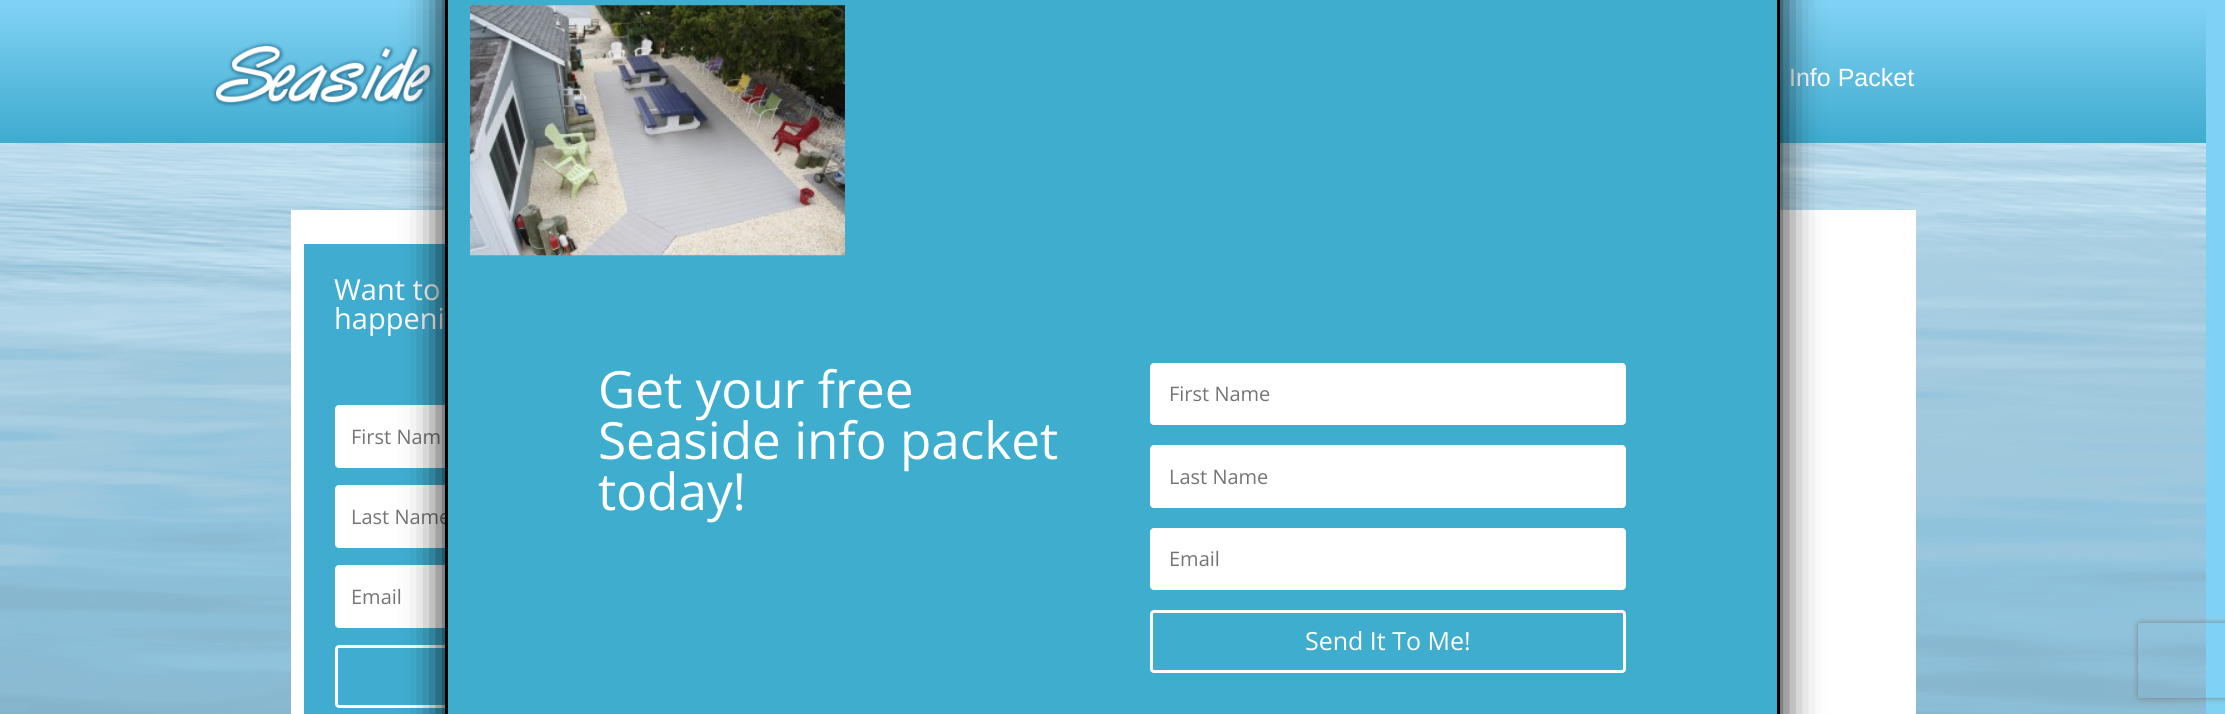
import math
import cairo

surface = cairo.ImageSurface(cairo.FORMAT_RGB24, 2225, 714)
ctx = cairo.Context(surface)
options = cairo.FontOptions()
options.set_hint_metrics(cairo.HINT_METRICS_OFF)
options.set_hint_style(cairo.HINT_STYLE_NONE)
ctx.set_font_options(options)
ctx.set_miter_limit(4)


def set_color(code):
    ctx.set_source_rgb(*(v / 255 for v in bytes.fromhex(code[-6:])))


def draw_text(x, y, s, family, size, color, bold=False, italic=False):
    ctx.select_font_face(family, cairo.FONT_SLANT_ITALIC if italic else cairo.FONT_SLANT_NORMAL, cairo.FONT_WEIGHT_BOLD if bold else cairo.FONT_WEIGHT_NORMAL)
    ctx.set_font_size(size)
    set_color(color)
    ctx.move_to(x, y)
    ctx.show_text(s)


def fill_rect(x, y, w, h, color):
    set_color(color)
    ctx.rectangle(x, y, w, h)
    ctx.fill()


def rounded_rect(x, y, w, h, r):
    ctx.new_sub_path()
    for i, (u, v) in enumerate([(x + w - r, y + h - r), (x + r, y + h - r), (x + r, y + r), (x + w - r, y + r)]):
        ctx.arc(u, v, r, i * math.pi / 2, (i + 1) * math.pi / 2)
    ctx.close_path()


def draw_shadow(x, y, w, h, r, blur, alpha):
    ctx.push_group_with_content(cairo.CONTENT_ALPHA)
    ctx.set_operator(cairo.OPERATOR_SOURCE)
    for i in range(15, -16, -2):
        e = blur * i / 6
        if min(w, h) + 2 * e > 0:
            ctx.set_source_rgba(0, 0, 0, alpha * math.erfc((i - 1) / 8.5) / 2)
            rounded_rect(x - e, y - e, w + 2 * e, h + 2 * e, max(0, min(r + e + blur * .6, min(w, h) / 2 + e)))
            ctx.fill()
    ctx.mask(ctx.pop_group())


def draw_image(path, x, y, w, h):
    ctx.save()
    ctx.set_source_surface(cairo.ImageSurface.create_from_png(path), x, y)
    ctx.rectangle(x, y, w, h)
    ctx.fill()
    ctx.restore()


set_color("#80d2f4")
ctx.paint()
gradient = cairo.LinearGradient(1103, 0, 1103, 143)
gradient.add_color_stop_rgba(0, 0.51, 0.827, 0.957, 1)
gradient.add_color_stop_rgba(1, 0.243, 0.671, 0.812, 1)
ctx.set_source(gradient)
ctx.rectangle(0, 9, 2206, 134)
ctx.fill()
draw_image("assets/img1.png", 212, 42, 223, 65)
draw_text(1789, 86, "Info Packet", "Liberation Sans", 25, "#ffffff")
draw_image("assets/img2.png", 0, 143, 2206, 571)
fill_rect(291, 210, 1625, 504, "#ffffff")
fill_rect(304, 244, 141, 470, "#40add0")
draw_text(334, 300, "Want to", "Open Sans", 29, "#ffffff")
draw_text(334, 329, "happeni", "Open Sans", 29, "#ffffff")
rounded_rect(335, 405, 411, 63, 4)
ctx.fill()
draw_text(351, 444, "First Nam", "Open Sans", 20, "#757575")
set_color("#ffffff")
rounded_rect(335, 485, 411, 63, 4)
ctx.fill()
draw_text(351, 524, "Last Name", "Open Sans", 20, "#757575")
set_color("#ffffff")
rounded_rect(335, 565, 411, 63, 4)
ctx.fill()
draw_text(351, 604, "Email", "Open Sans", 20, "#757575")
rounded_rect(336.5, 646.5, 408, 60, 2.5)
set_color("#ffffff")
ctx.set_line_width(3)
ctx.stroke()
set_color("#020202")
draw_shadow(445, -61, 1335, 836, 4, 19, 1)
set_color("#3faece")
ctx.rectangle(446.5, -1.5, 1332, 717)
ctx.fill_preserve()
set_color("#000000")
ctx.stroke()
draw_image("assets/img3.png", 470, 5, 375, 251)
draw_text(598, 408, "Get your free", "Open Sans", 51.25, "#ffffff")
draw_text(598, 459, "Seaside info packet", "Open Sans", 51.25, "#ffffff")
draw_text(598, 510, "today!", "Open Sans", 51.25, "#ffffff")
rounded_rect(1150, 363, 476, 62, 4)
ctx.fill()
draw_text(1169, 401, "First Name", "Open Sans", 20, "#757575")
set_color("#ffffff")
rounded_rect(1150, 445, 476, 63, 4)
ctx.fill()
draw_text(1169, 484, "Last Name", "Open Sans", 20, "#757575")
set_color("#ffffff")
rounded_rect(1150, 528, 476, 62, 4)
ctx.fill()
draw_text(1169, 566, "Email", "Open Sans", 20, "#757575")
rounded_rect(1151.5, 611.5, 473, 60, 2.5)
set_color("#ffffff")
ctx.stroke()
draw_text(1305, 650, "Send It To Me!", "Open Sans", 25, "#ffffff")
ctx.save()
ctx.set_fill_rule(cairo.FILL_RULE_EVEN_ODD)
ctx.new_path()
ctx.move_to(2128, 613)
ctx.line_to(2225, 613)
ctx.line_to(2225, 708)
ctx.line_to(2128, 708)
ctx.close_path()
ctx.move_to(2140.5, 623)
ctx.line_to(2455.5, 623)
ctx.curve_to(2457, 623, 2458, 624, 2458, 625.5)
ctx.line_to(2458, 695.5)
ctx.curve_to(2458, 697, 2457, 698, 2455.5, 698)
ctx.line_to(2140.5, 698)
ctx.curve_to(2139, 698, 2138, 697, 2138, 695.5)
ctx.line_to(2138, 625.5)
ctx.curve_to(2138, 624, 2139, 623, 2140.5, 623)
ctx.close_path()
ctx.clip()
set_color("#808080")
draw_shadow(2138, 623, 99, 75, 2.5, 3, 1)
ctx.restore()
surface.write_to_png("output.png")
